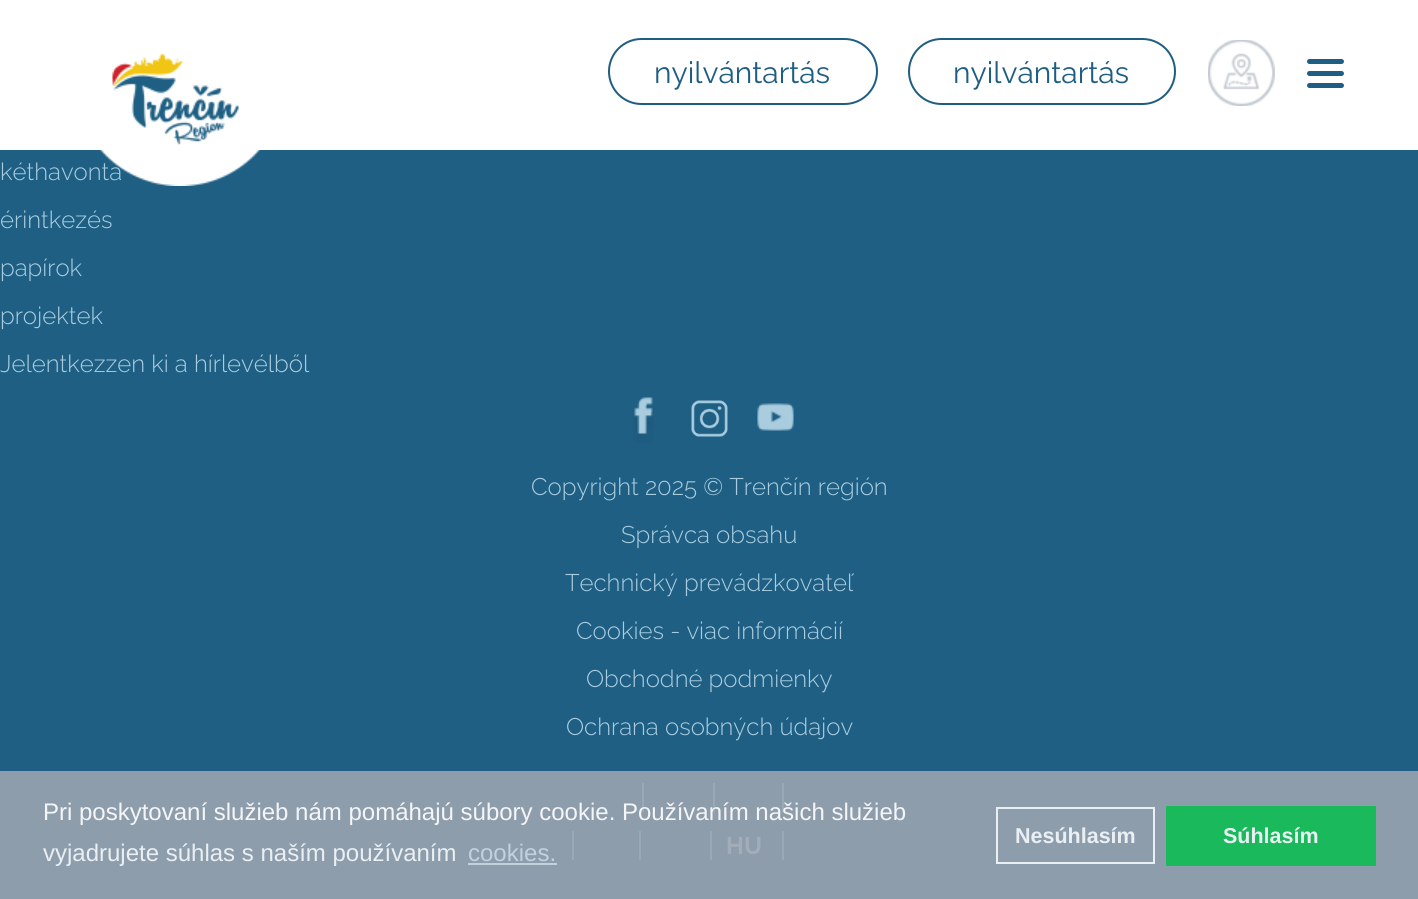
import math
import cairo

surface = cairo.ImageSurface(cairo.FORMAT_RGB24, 1418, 899)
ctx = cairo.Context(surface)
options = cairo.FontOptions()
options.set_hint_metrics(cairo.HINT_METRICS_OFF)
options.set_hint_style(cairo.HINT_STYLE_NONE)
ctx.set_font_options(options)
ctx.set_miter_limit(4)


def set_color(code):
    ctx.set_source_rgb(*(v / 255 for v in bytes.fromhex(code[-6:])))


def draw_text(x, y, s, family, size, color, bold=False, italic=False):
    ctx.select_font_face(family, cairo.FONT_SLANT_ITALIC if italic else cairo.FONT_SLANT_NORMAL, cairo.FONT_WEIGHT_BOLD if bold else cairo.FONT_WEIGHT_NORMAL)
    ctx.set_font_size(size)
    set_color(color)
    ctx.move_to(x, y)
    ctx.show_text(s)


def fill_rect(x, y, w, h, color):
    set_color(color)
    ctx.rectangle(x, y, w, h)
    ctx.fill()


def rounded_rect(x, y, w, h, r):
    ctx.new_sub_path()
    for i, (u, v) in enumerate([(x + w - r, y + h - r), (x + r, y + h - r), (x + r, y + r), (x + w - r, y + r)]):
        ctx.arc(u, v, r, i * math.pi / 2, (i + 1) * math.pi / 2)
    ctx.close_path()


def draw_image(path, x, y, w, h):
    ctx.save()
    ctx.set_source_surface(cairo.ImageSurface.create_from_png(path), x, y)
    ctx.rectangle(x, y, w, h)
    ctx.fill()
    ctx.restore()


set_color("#1e5f83")
ctx.paint()
fill_rect(0, 0, 1418, 150, "#ffffff")
draw_text(0, 180, "kéthavonta", "Raleway Light", 24, "#a9ccdf")
draw_image("assets/img1.png", 99, 53, 162, 133)
rounded_rect(609, 39, 268, 65, 32.5)
set_color("#1e5e82")
ctx.stroke()
draw_text(654, 83, "nyilvántartás", "Raleway", 30, "#1e5e82")
rounded_rect(909, 39, 266, 65, 32.5)
ctx.stroke()
draw_text(953, 83, "nyilvántartás", "Raleway", 30, "#1e5e82")
draw_image("assets/img2.png", 1208, 40, 67, 66)
rounded_rect(1307, 59, 37, 5, 2.5)
ctx.fill()
rounded_rect(1307, 71, 37, 5, 2.5)
ctx.fill()
rounded_rect(1307, 83, 37, 5, 2.5)
ctx.fill()
fill_rect(0, 771, 1418, 128, "#8d9dac")
draw_text(0, 228, "érintkezés", "Raleway Light", 24, "#a9ccdf")
draw_text(0, 276, "papírok", "Raleway Light", 24, "#a9ccdf")
draw_text(0, 324, "projektek", "Raleway Light", 24, "#a9ccdf")
draw_text(0, 372, "Jelentkezzen ki a hírlevélből", "Raleway Light", 24, "#a9ccdf")
draw_image("assets/img3.png", 633, 397, 21, 46)
draw_image("assets/img4.png", 691, 400, 37, 37)
draw_image("assets/img5.png", 757, 403, 37, 28)
draw_text(531, 495, "Copyright 2025 © Trenčín región", "Raleway Light", 24, "#a9ccdf")
draw_text(621, 543, "Správca obsahu", "Raleway Light", 24, "#a9ccdf")
draw_text(565, 591, "Technický prevádzkovateľ", "Raleway Light", 24, "#a9ccdf")
draw_text(576, 639, "Cookies - viac informácií", "Raleway Light", 24, "#a9ccdf")
draw_text(586, 687, "Obchodné podmienky", "Raleway Light", 24, "#a9ccdf")
draw_text(566, 735, "Ochrana osobných údajov", "Raleway Light", 24, "#a9ccdf")
fill_rect(642, 783, 2, 29, "#9ba8b6")
fill_rect(713, 783, 2, 29, "#9ba8b6")
fill_rect(782, 783, 2, 29, "#9ba8b6")
fill_rect(572, 831, 2, 29, "#9ba8b6")
fill_rect(639, 831, 2, 29, "#9ba8b6")
draw_text(726, 854, "HU", "Raleway", 24, "#a3adb9", bold=True)
fill_rect(710, 831, 2, 29, "#9ba8b6")
fill_rect(782, 831, 2, 29, "#9ba8b6")
draw_text(43, 820, "Pri poskytovaní služieb nám pomáhajú súbory cookie. Používaním našich služieb", "Liberation Sans", 24, "#f4f5f7")
draw_text(43, 861, "vyjadrujete súhlas s naším používaním", "Liberation Sans", 24, "#e9eff3")
draw_text(468, 861, "cookies.", "Liberation Sans", 24, "#c0d2dc")
fill_rect(468, 863, 89, 2, "#c0d2dc")
ctx.rectangle(997, 808, 157, 55)
set_color("#e9eff3")
ctx.stroke()
draw_text(1015, 843, "Nesúhlasím", "Liberation Sans", 21.5, "#e9eff3", bold=True)
fill_rect(1166, 806, 210, 60, "#19b95c")
draw_text(1223, 843, "Súhlasím", "Liberation Sans", 21.5, "#e9eff3", bold=True)
surface.write_to_png("output.png")
